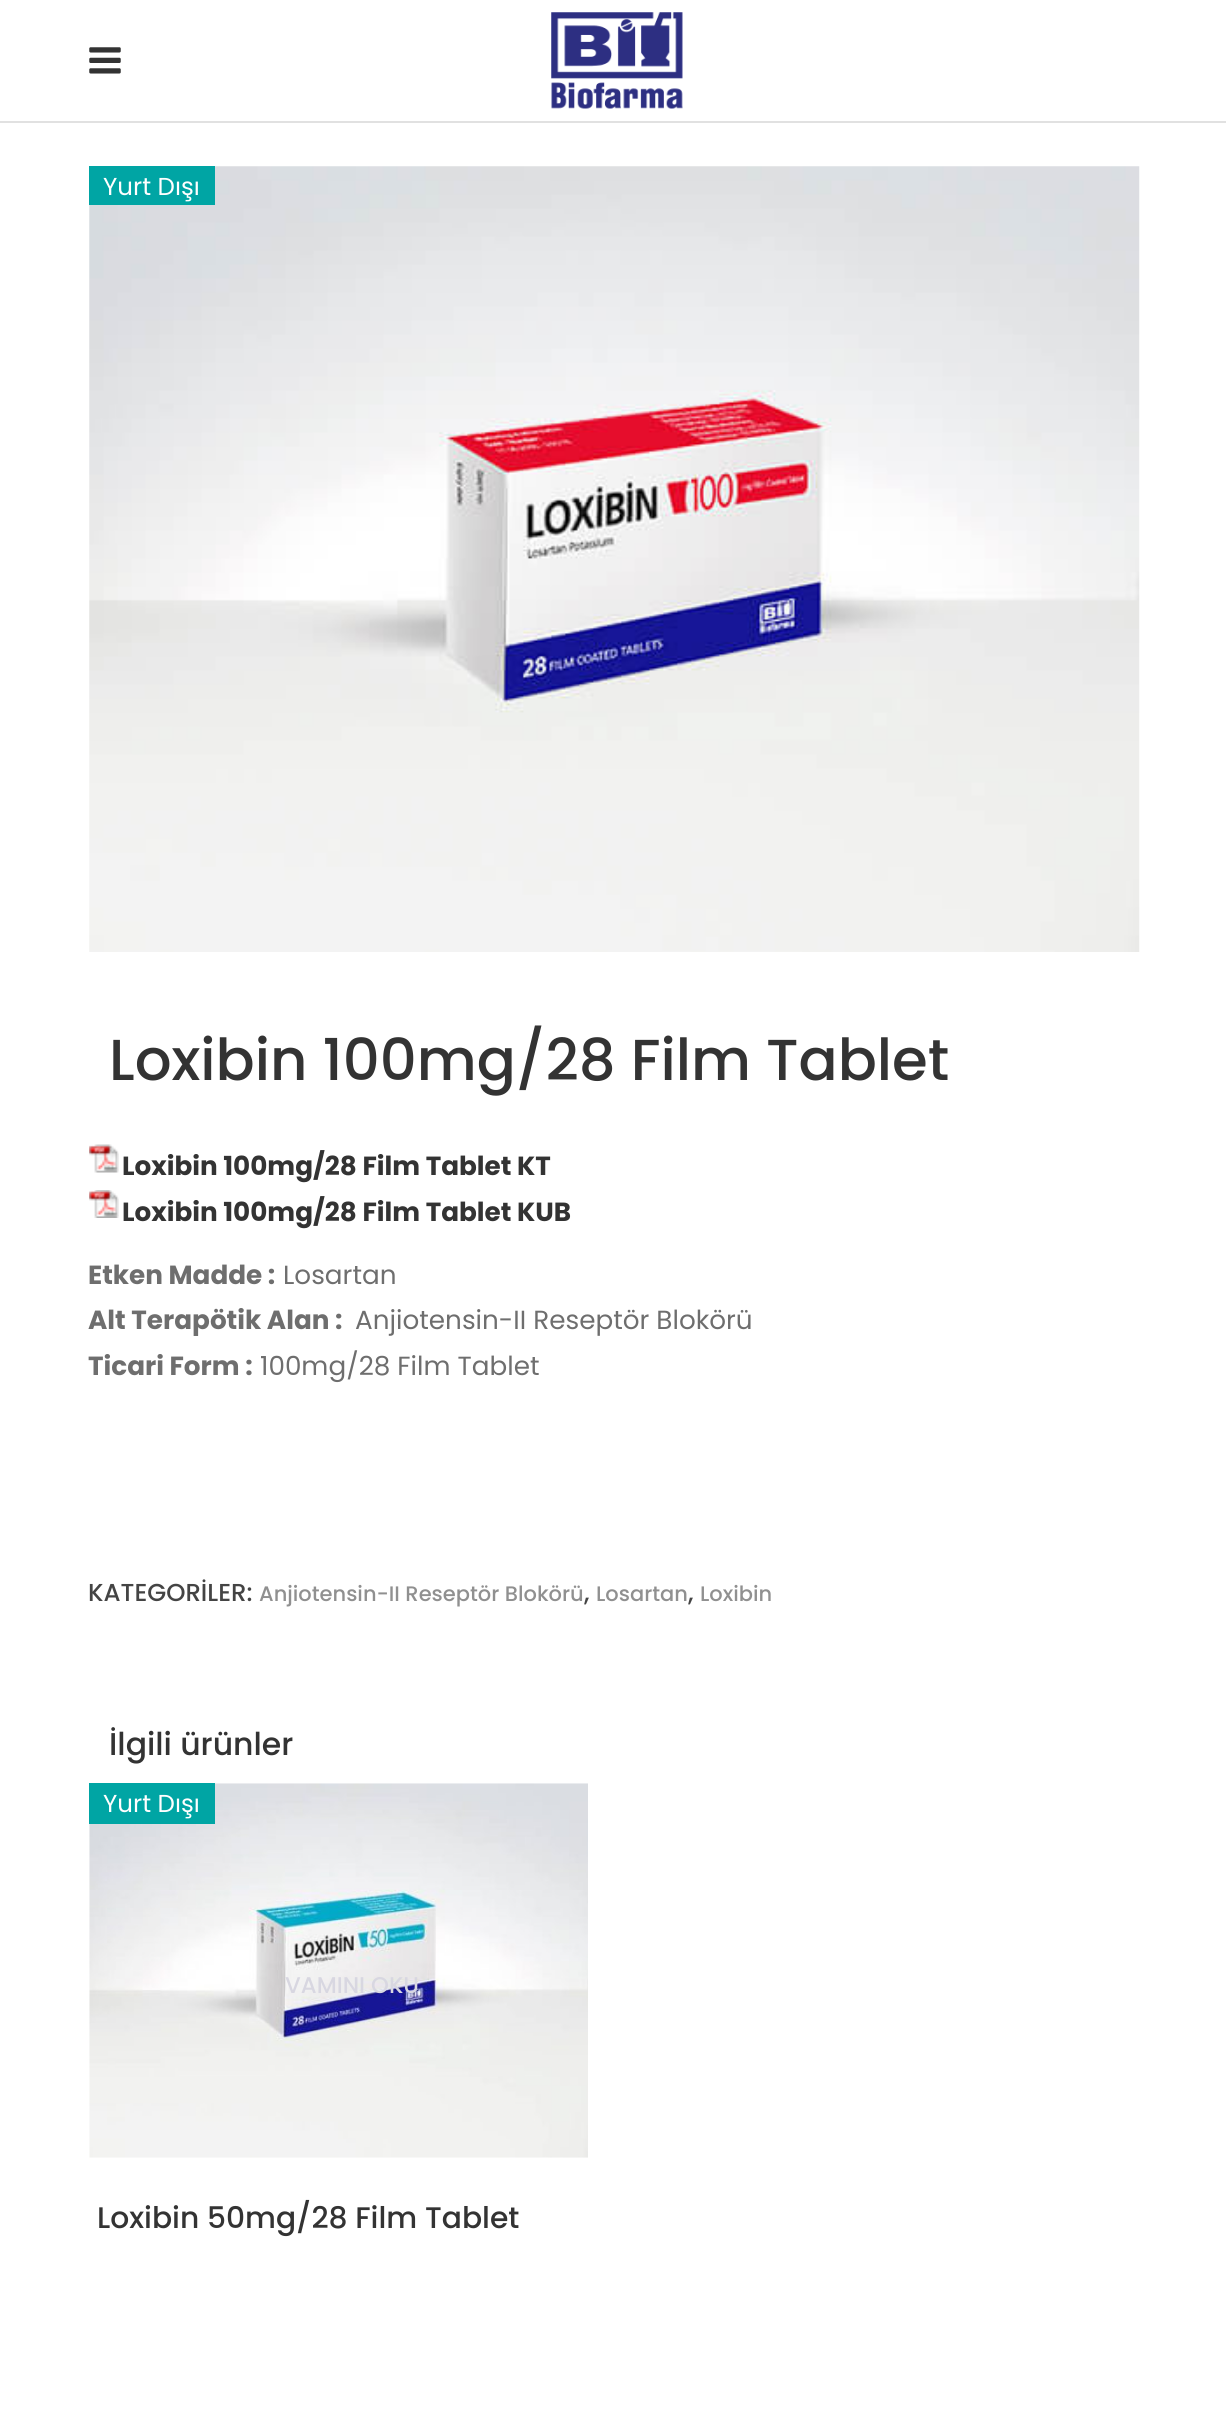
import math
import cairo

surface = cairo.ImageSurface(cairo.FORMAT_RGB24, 1226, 2429)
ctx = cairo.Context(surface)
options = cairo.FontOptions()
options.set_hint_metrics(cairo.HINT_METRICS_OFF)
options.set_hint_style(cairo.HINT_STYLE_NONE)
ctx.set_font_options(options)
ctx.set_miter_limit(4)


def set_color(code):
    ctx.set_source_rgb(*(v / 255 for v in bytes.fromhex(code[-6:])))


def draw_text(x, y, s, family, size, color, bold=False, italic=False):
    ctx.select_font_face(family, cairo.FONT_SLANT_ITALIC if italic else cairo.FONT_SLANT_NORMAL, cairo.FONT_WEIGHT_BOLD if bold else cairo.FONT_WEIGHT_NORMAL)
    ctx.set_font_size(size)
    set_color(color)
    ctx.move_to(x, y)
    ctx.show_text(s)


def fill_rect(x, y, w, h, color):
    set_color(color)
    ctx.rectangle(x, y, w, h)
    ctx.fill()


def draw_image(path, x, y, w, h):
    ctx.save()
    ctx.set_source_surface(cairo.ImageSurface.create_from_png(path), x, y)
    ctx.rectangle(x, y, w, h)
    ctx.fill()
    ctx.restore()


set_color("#ffffff")
ctx.paint()
fill_rect(0, 121, 1226, 2, "#e1e1e1")
draw_image("assets/img1.png", 89, 47, 32, 27)
draw_image("assets/img2.png", 551, 12, 132, 97)
draw_image("assets/img3.png", 89, 166, 1051, 786)
fill_rect(89, 166, 126, 39, "#00a5a4")
draw_text(103, 195, "Yurt Dışı", "Poppins", 24.5, "#ffffff")
draw_text(109, 1080, "Loxibin 100mg/28 Film Tablet", "Poppins Medium", 57.75, "#333333")
draw_image("assets/img4.png", 89, 1144, 30, 29)
draw_text(122, 1175, "Loxibin 100mg/28 Film Tablet KT", "Poppins", 26.25, "#333333", bold=True)
draw_image("assets/img5.png", 89, 1190, 30, 28)
draw_text(122, 1221, "Loxibin 100mg/28 Film Tablet KUB", "Poppins", 26.25, "#333333", bold=True)
draw_text(88, 1284, "Etken Madde :", "Poppins", 26.25, "#6e6e6e", bold=True)
draw_text(283, 1284, "Losartan", "Poppins", 26.25, "#6e6e6e")
draw_text(88, 1329, "Alt Terapötik Alan :", "Poppins", 26.25, "#6e6e6e", bold=True)
draw_text(355, 1329, "Anjiotensin-II Reseptör Blokörü", "Poppins", 26.25, "#6e6e6e")
draw_text(88, 1375, "Ticari Form :", "Poppins", 26.25, "#6e6e6e", bold=True)
draw_text(260, 1375, "100mg/28 Film Tablet", "Poppins", 26.25, "#6e6e6e")
draw_text(88, 1601, "KATEGORİLER:", "Poppins Medium", 24.5, "#444444")
draw_text(259, 1601, "Anjiotensin-II Reseptör Blokörü", "Poppins Medium", 21, "#909090")
draw_text(584, 1601, ",", "Poppins Medium", 24.5, "#444444")
draw_text(596, 1601, "Losartan", "Poppins Medium", 21, "#909090")
draw_text(688, 1601, ",", "Poppins Medium", 24.5, "#444444")
draw_text(700, 1601, "Loxibin", "Poppins Medium", 21, "#909090")
draw_text(109, 1755, "İlgili ürünler", "Poppins Medium", 31.5, "#333333")
draw_image("assets/img6.png", 89, 1783, 499, 375)
fill_rect(89, 1783, 126, 41, "#00a5a4")
draw_text(103, 1812, "Yurt Dışı", "Poppins", 24.5, "#ffffff")
draw_text(285, 1993, "VAMINI OKU", "Poppins Medium", 22.75, "#d8d7e1")
draw_text(97, 2228, "Loxibin 50mg/28 Film Tablet", "Poppins Medium", 29.75, "#333333")
surface.write_to_png("output.png")
